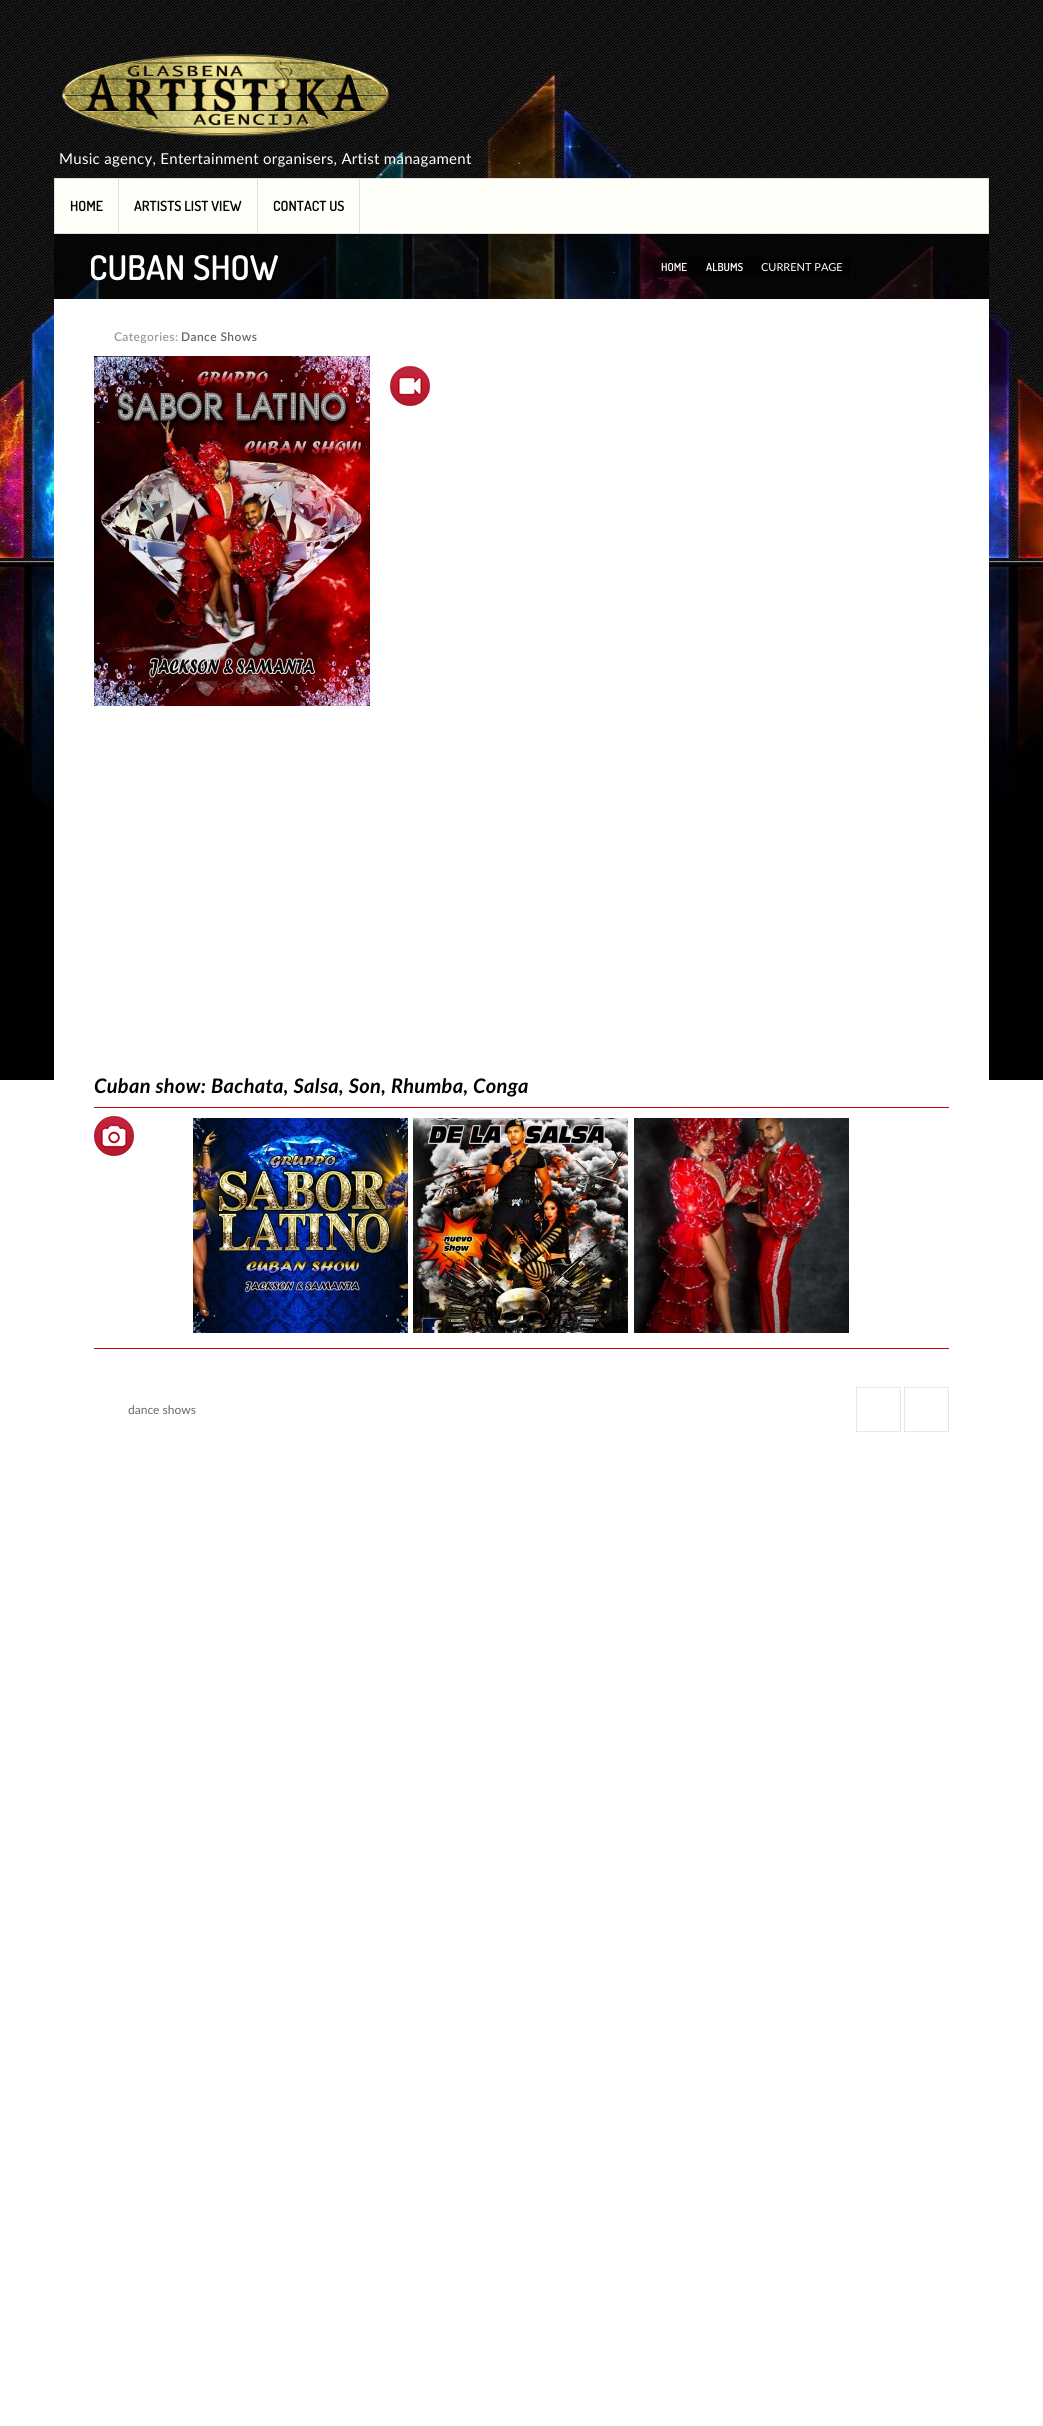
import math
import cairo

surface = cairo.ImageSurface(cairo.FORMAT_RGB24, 1043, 2426)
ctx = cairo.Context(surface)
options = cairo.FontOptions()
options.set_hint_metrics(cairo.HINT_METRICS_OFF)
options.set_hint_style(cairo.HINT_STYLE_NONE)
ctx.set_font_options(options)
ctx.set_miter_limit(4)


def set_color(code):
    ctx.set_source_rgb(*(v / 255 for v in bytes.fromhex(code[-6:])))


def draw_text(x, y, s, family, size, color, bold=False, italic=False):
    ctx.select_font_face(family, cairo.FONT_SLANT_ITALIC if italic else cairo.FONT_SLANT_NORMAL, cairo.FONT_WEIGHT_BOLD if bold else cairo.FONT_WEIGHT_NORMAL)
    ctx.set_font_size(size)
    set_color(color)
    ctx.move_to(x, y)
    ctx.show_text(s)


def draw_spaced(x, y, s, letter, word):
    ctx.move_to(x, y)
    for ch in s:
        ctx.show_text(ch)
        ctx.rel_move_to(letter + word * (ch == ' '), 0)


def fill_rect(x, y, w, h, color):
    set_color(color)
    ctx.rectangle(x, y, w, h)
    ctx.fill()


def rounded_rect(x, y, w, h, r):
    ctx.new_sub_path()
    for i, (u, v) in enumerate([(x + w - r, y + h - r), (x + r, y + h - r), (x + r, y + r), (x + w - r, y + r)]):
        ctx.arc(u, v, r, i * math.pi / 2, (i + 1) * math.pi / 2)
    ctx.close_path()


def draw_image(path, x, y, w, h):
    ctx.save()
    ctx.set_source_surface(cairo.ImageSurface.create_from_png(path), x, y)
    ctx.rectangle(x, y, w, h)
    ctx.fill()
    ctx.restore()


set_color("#ffffff")
ctx.paint()
draw_image("assets/img1.png", 0, 0, 1043, 1080)
draw_image("assets/img2.png", 61, 53, 329, 84)
ctx.select_font_face("Lato")
ctx.set_font_size(15)
set_color("#ffffff")
draw_spaced(59, 164, "Music agency, Entertainment organisers, Artist managament", 0.3, 0)
set_color("#fffffa")
ctx.rectangle(54.5, 178.5, 934, 55)
ctx.fill_preserve()
set_color("#e1e1e1")
ctx.set_line_width(1)
ctx.stroke()
fill_rect(118, 179, 1, 54, "#e1e1e1")
draw_text(70, 211, "HOME", "Dosis SemiBold", 14, "#000000")
fill_rect(257, 179, 1, 54, "#e1e1e1")
draw_text(134, 211, "ARTISTS LIST VIEW", "Dosis SemiBold", 14, "#000000")
fill_rect(359, 179, 1, 54, "#e1e1e1")
draw_text(273, 211, "CONTACT US", "Dosis SemiBold", 14, "#000000")
ctx.set_source_rgba(0, 0, 0, 0.7)
ctx.rectangle(54, 234, 935, 65)
ctx.fill()
ctx.set_font_size(34)
set_color("#ffffff")
draw_spaced(89, 280, "CUBAN SHOW", 0, 1)
ctx.set_source_rgba(0, 0, 0, 0.5)
rounded_rect(653, 257, 197, 20, 2)
ctx.fill()
draw_text(661, 271, "HOME", "Dosis SemiBold", 11, "#ffffff")
draw_text(706, 271, "ALBUMS", "Dosis SemiBold", 11, "#ffffff")
draw_text(761, 271, "CURRENT PAGE", "Lato", 11, "#ffffff")
fill_rect(54, 299, 935, 781, "#ffffff")
ctx.select_font_face("Lato SemiBold")
ctx.set_font_size(12)
set_color("#999999")
draw_spaced(114, 341, "Categories:", 0.4, 0)
set_color("#666666")
draw_spaced(181, 341, "Dance Shows", 0.4, 0)
draw_image("assets/img3.png", 94, 356, 276, 350)
draw_image("assets/img4.png", 390, 366, 40, 40)
ctx.select_font_face("Lato", cairo.FONT_SLANT_ITALIC, cairo.FONT_WEIGHT_BOLD)
ctx.set_font_size(20)
set_color("#000000")
draw_spaced(94, 1093, "Cuban show: Bachata, Salsa, Son, Rhumba, Conga", 0.3, 0)
fill_rect(94, 1107, 855, 1, "#cb0505")
draw_image("assets/img5.png", 94, 1116, 40, 40)
draw_image("assets/img6.png", 193, 1118, 215, 215)
draw_image("assets/img7.png", 413, 1118, 215, 215)
draw_image("assets/img8.png", 634, 1118, 215, 215)
fill_rect(94, 1348, 855, 1, "#cb0505")
draw_text(128, 1414, "dance shows", "Lato", 12, "#666666")
ctx.rectangle(856.5, 1387.5, 44, 44)
set_color("#e7e7e7")
ctx.stroke()
ctx.rectangle(904.5, 1387.5, 44, 44)
ctx.stroke()
surface.write_to_png("output.png")
